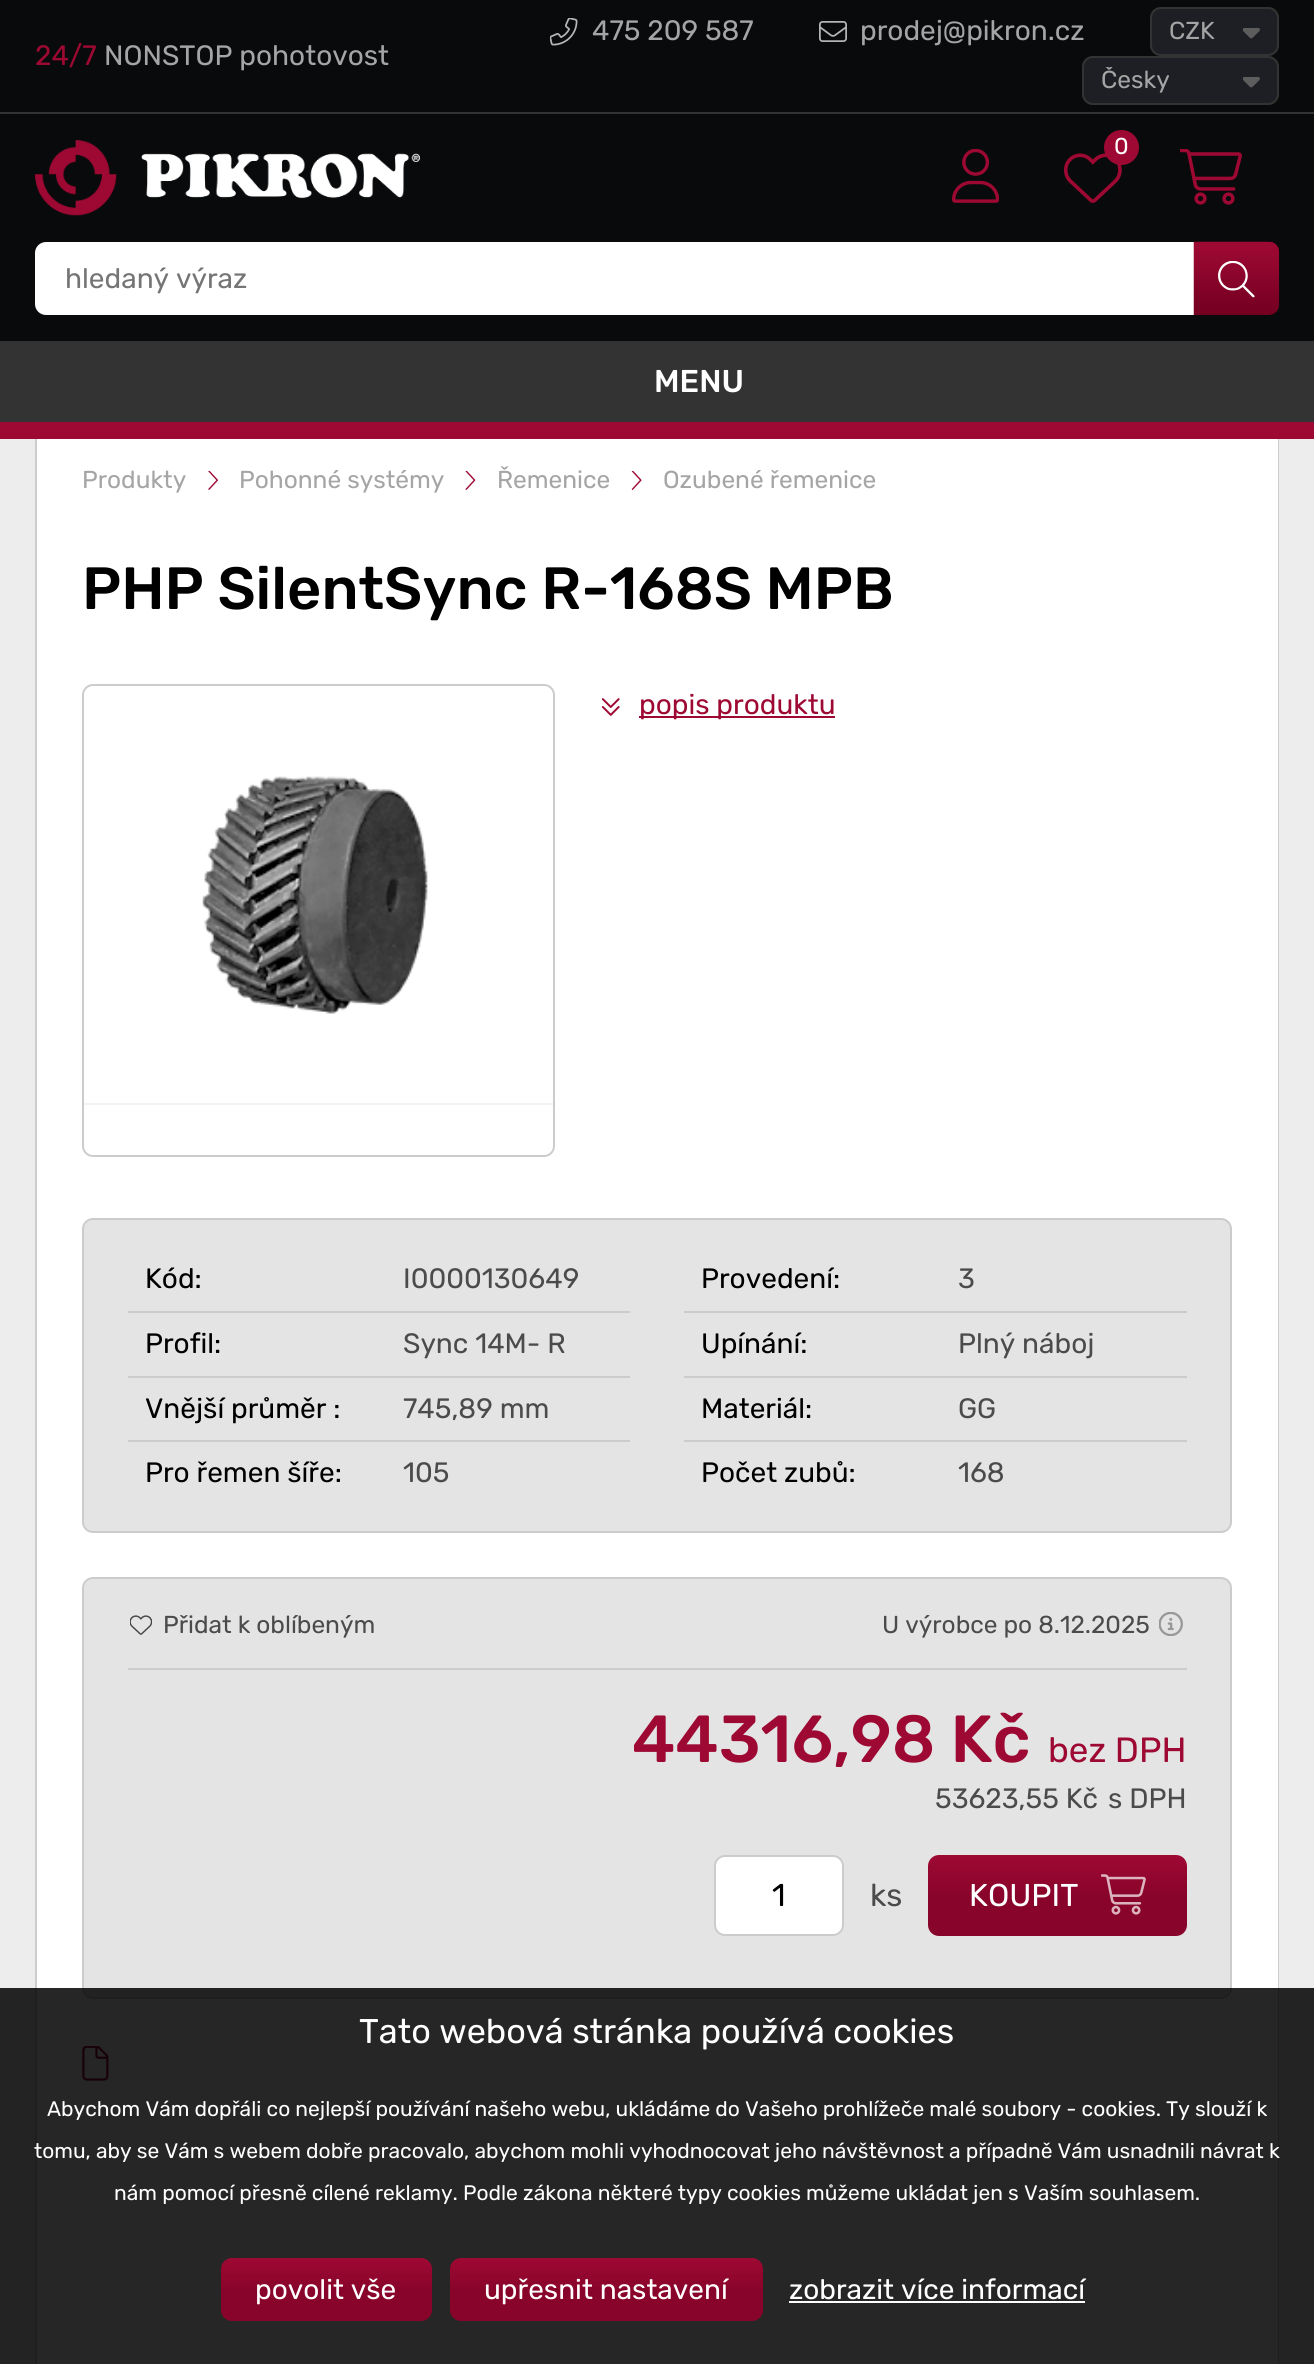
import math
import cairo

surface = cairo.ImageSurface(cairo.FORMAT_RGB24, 1314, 2364)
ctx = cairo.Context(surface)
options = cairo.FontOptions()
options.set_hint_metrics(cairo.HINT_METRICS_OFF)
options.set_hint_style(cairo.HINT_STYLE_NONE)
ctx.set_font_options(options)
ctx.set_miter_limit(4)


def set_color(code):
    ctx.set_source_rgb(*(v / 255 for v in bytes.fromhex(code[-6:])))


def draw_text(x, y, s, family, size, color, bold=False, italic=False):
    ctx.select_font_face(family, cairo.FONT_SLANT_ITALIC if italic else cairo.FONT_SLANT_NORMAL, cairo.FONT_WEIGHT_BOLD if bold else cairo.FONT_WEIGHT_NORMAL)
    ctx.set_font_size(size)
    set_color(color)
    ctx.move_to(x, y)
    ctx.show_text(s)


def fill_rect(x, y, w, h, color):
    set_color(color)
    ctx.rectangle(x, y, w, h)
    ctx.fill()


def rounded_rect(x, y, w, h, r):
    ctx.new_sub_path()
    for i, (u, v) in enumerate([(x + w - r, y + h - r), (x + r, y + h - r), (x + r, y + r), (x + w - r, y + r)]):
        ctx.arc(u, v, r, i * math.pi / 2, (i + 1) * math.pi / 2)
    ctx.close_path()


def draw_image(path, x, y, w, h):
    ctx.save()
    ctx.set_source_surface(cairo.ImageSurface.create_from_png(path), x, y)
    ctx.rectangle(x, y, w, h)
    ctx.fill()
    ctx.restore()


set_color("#090a0c")
ctx.paint()
fill_rect(0, 112, 1314, 2, "#333333")
draw_text(35, 65, "24/7", "Rubik", 28, "#9e0933")
draw_text(104, 65, "NONSTOP pohotovost", "Rubik", 28, "#a5a5a6")
draw_image("assets/img1.png", 550, 18, 28, 28)
draw_text(592, 40, "475 209 587", "Rubik", 28, "#a5a5a6")
draw_image("assets/img2.png", 819, 21, 28, 21)
draw_text(860, 40, "prodej@pikron.cz", "Rubik", 28, "#a5a5a6")
set_color("#1d1f24")
rounded_rect(1150, 7, 129, 49, 11)
ctx.fill()
draw_image("assets/img3.png", 1243, 27, 17, 12)
rounded_rect(1151, 8, 127, 47, 10)
set_color("#333333")
ctx.stroke()
draw_text(1169, 39, "CZK", "Rubik", 24.5, "#a5a5a6")
set_color("#1d1f24")
rounded_rect(1082, 56, 197, 49, 11)
ctx.fill()
draw_image("assets/img3.png", 1243, 76, 17, 12)
rounded_rect(1083, 57, 195, 47, 10)
set_color("#333333")
ctx.stroke()
ctx.save()
ctx.rectangle(1101, 67, 117, 29)
ctx.clip()
draw_text(1101, 88, "Česky", "Rubik", 24.5, "#a5a5a6")
ctx.restore()
draw_image("assets/img4.png", 35, 140, 385, 76)
draw_image("assets/img5.png", 1064, 153, 58, 50)
set_color("#9e0933")
ctx.arc(1121.5, 147.5, 17.5, 0, 2 * math.pi)
ctx.fill()
draw_text(1114, 154, "0", "Rubik", 23, "#ffffff")
draw_image("assets/img6.png", 952, 149, 47, 54)
draw_image("assets/img7.png", 1180, 149, 62, 56)
rounded_rect(35, 242, 1241, 73, 11)
ctx.fill()
draw_text(65, 288, "hledaný výraz", "Rubik", 28, "#757575")
draw_image("assets/img8.png", 1193, 241, 87, 74)
fill_rect(0, 341, 1314, 81, "#333333")
draw_text(654, 392, "MENU", "Rubik Medium", 31.5, "#ffffff")
fill_rect(0, 439, 1314, 1925, "#ededed")
fill_rect(0, 422, 1314, 17, "#9e0933")
fill_rect(37, 439, 1241, 1925, "#ffffff")
set_color("#cccccc")
ctx.set_fill_rule(cairo.FILL_RULE_EVEN_ODD)
ctx.new_path()
ctx.move_to(35, 439)
ctx.line_to(1279, 439)
ctx.line_to(1279, 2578)
ctx.curve_to(1279, 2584, 1275, 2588, 1269, 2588)
ctx.line_to(46, 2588)
ctx.curve_to(40, 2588, 35, 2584, 35, 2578)
ctx.close_path()
ctx.move_to(37, 439)
ctx.line_to(1278, 439)
ctx.line_to(1278, 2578)
ctx.curve_to(1278, 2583, 1274, 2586, 1269, 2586)
ctx.line_to(46, 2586)
ctx.curve_to(41, 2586, 37, 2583, 37, 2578)
ctx.close_path()
ctx.fill()
draw_text(82, 488, "Produkty", "Rubik", 24.5, "#a5a5a6")
draw_image("assets/img9.png", 208, 471, 10, 19)
draw_text(239, 488, "Pohonné systémy", "Rubik", 24.5, "#a5a5a6")
draw_image("assets/img10.png", 465, 471, 11, 19)
draw_text(497, 488, "Řemenice", "Rubik", 24.5, "#a5a5a6")
draw_image("assets/img11.png", 631, 471, 11, 19)
draw_text(663, 488, "Ozubené řemenice", "Rubik", 24.5, "#a5a5a6")
draw_text(82, 609, "PHP SilentSync R-168S MPB", "Rubik Medium", 59.5, "#000000")
rounded_rect(83, 685, 471, 471, 10)
set_color("#cccccc")
ctx.stroke()
fill_rect(84, 1103, 469, 2, "#f3f3f3")
draw_image("assets/img12.png", 202, 776, 226, 238)
draw_image("assets/img13.png", 601, 698, 19, 18)
fill_rect(639, 716, 196, 2, "#9e0933")
draw_text(639, 714, "popis produktu", "Rubik", 28, "#9e0933")
set_color("#e4e4e4")
rounded_rect(83, 1219, 1148, 313, 10)
ctx.fill_preserve()
set_color("#cccccc")
ctx.stroke()
draw_text(145, 1288, "Kód:", "Rubik", 28, "#000000")
draw_text(403, 1288, "I0000130649", "Rubik", 28, "#4b4b4b")
draw_text(701, 1288, "Provedení:", "Rubik", 28, "#000000")
draw_text(958, 1288, "3", "Rubik", 28, "#4b4b4b")
fill_rect(128, 1311, 502, 2, "#cccccc")
draw_text(145, 1353, "Profil:", "Rubik", 28, "#000000")
draw_text(403, 1353, "Sync 14M- R", "Rubik", 28, "#4b4b4b")
fill_rect(684, 1311, 503, 2, "#cccccc")
draw_text(701, 1353, "Upínání:", "Rubik", 28, "#000000")
draw_text(958, 1353, "Plný náboj", "Rubik", 28, "#4b4b4b")
fill_rect(128, 1376, 502, 2, "#cccccc")
draw_text(145, 1418, "Vnější průměr :", "Rubik", 28, "#000000")
draw_text(403, 1418, "745,89 mm", "Rubik", 28, "#4b4b4b")
fill_rect(684, 1376, 503, 2, "#cccccc")
draw_text(701, 1418, "Materiál:", "Rubik", 28, "#000000")
draw_text(958, 1418, "GG", "Rubik", 28, "#4b4b4b")
fill_rect(128, 1440, 502, 2, "#cccccc")
draw_text(145, 1482, "Pro řemen šíře:", "Rubik", 28, "#000000")
draw_text(403, 1482, "105", "Rubik", 28, "#4b4b4b")
fill_rect(684, 1440, 503, 2, "#cccccc")
draw_text(701, 1482, "Počet zubů:", "Rubik", 28, "#000000")
draw_text(958, 1482, "168", "Rubik", 28, "#4b4b4b")
set_color("#e4e4e4")
rounded_rect(83, 1578, 1148, 420, 10)
ctx.fill_preserve()
set_color("#cccccc")
ctx.stroke()
fill_rect(128, 1668, 1059, 2, "#cccccc")
draw_image("assets/img14.png", 130, 1615, 22, 20)
draw_text(163, 1633, "Přidat k oblíbeným", "Rubik", 24.5, "#4b4b4b")
draw_text(882, 1633, "U výrobce po 8.12.2025", "Rubik", 24.5, "#4b4b4b")
draw_image("assets/img15.png", 1159, 1612, 24, 24)
draw_text(632, 1762, "44316,98 Kč", "Rubik Medium", 66.5, "#9e0933")
draw_text(1048, 1762, "bez DPH", "Rubik", 35, "#9e0933")
draw_text(935, 1808, "53623,55 Kč", "Rubik", 28, "#4b4b4b")
draw_text(1108, 1808, "s DPH", "Rubik", 28, "#4b4b4b")
set_color("#ffffff")
rounded_rect(715, 1856, 128, 79, 10)
ctx.fill_preserve()
set_color("#cccccc")
ctx.stroke()
draw_text(772, 1906, "1", "Rubik", 31.5, "#000000")
draw_text(870, 1906, "ks", "Rubik", 31.5, "#4b4b4b")
gradient = cairo.LinearGradient(1057, 1855, 1057, 1936)
gradient.add_color_stop_rgba(0, 0.62, 0.035, 0.2, 1)
gradient.add_color_stop_rgba(0.5, 0.537, 0.016, 0.165, 1)
ctx.set_source(gradient)
rounded_rect(928, 1855, 259, 81, 11)
ctx.fill()
draw_text(969, 1906, "KOUPIT", "Rubik", 31.5, "#ffffff")
draw_image("assets/img16.png", 1101, 1874, 45, 41)
draw_image("assets/img17.png", 82, 2046, 27, 35)
ctx.set_source_rgba(0, 0, 0, 0.85)
ctx.rectangle(0, 1988, 1314, 376)
ctx.fill()
draw_text(359, 2043, "Tato webová stránka používá cookies", "Rubik", 34.25, "#ffffff")
draw_text(47, 2116, "Abychom Vám dopřáli co nejlepší používání našeho webu, ukládáme do Vašeho prohlížeče malé soubory - cookies. Ty slouží k", "Rubik", 21, "#ffffff")
draw_text(34, 2158, "tomu, aby se Vám s webem dobře pracovalo, abychom mohli vyhodnocovat jeho návštěvnost a případně Vám usnadnili návrat k", "Rubik", 21, "#ffffff")
draw_text(114, 2200, "nám pomocí přesně cílené reklamy. Podle zákona některé typy cookies můžeme ukládat jen s Vaším souhlasem.", "Rubik", 21, "#ffffff")
gradient = cairo.LinearGradient(326, 2258, 326, 2321)
gradient.add_color_stop_rgba(0, 0.62, 0.035, 0.2, 1)
gradient.add_color_stop_rgba(0.5, 0.537, 0.016, 0.165, 1)
ctx.set_source(gradient)
rounded_rect(221, 2258, 211, 63, 11)
ctx.fill()
draw_text(255, 2299, "povolit vše", "Rubik", 28, "#ffffff")
gradient = cairo.LinearGradient(606, 2258, 606, 2321)
gradient.add_color_stop_rgba(0, 0.62, 0.035, 0.2, 1)
gradient.add_color_stop_rgba(0.5, 0.537, 0.016, 0.165, 1)
ctx.set_source(gradient)
rounded_rect(450, 2258, 313, 63, 11)
ctx.fill()
draw_text(484, 2299, "upřesnit nastavení", "Rubik", 28, "#ffffff")
draw_text(789, 2299, "zobrazit více informací", "Rubik", 28, "#ffffff")
fill_rect(789, 2301, 296, 2, "#ffffff")
surface.write_to_png("output.png")
